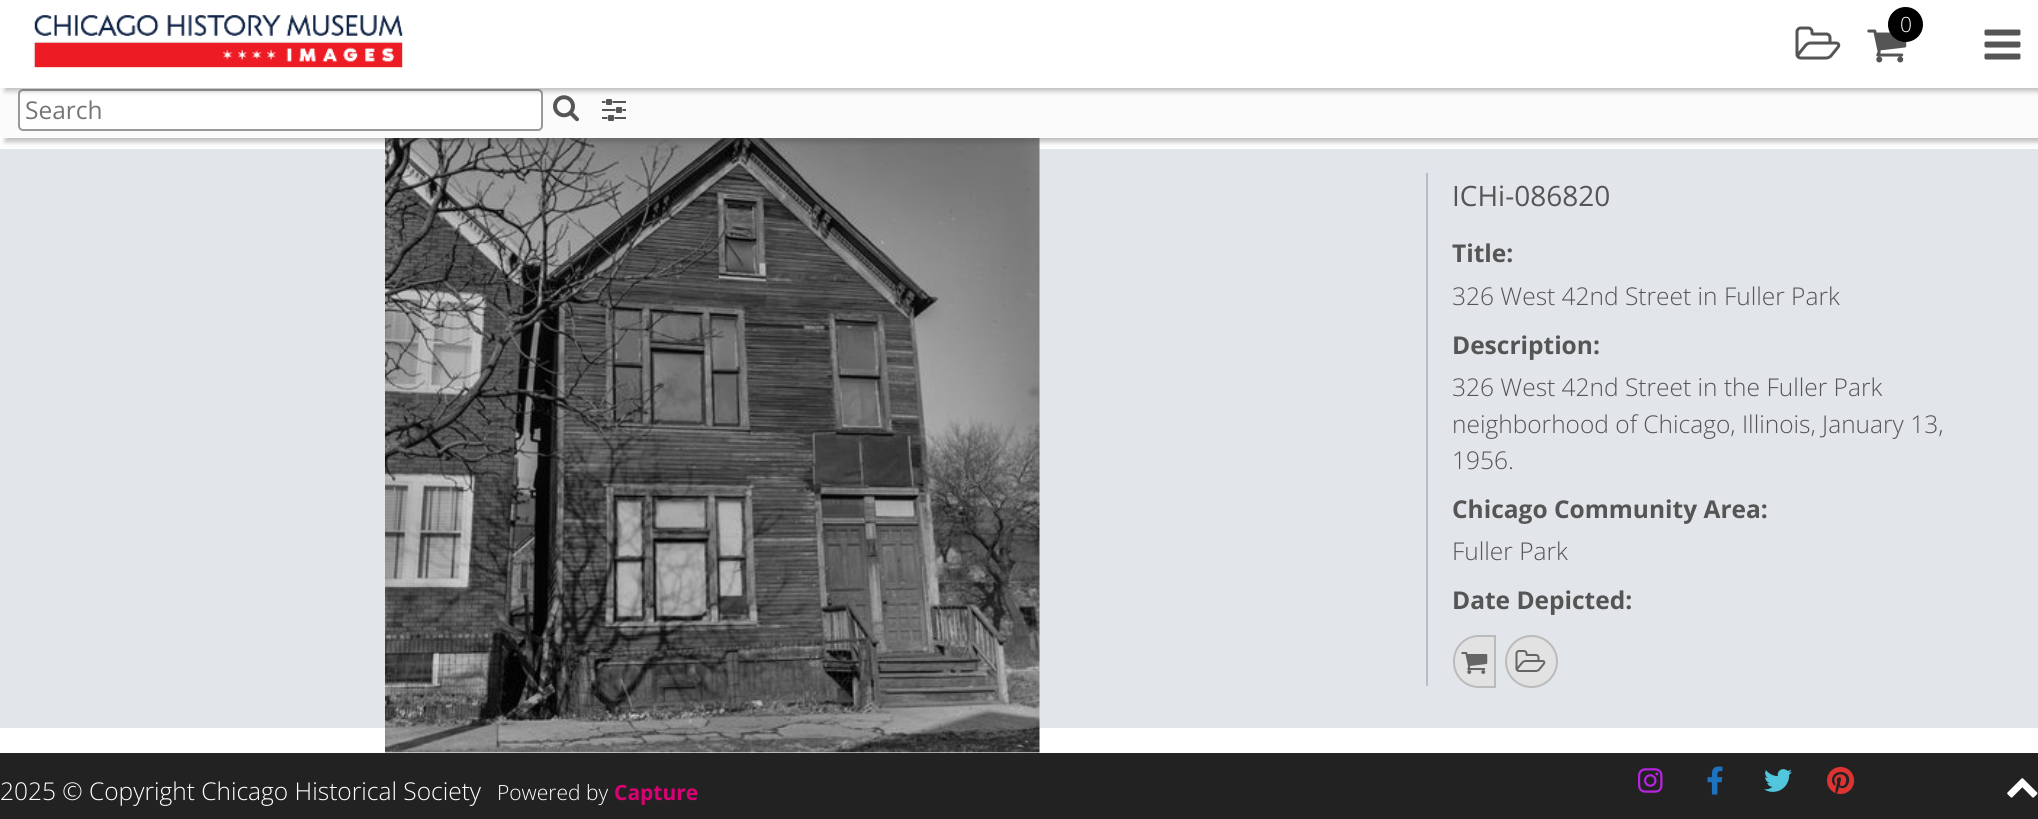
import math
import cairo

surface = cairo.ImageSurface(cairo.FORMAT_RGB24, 2038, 819)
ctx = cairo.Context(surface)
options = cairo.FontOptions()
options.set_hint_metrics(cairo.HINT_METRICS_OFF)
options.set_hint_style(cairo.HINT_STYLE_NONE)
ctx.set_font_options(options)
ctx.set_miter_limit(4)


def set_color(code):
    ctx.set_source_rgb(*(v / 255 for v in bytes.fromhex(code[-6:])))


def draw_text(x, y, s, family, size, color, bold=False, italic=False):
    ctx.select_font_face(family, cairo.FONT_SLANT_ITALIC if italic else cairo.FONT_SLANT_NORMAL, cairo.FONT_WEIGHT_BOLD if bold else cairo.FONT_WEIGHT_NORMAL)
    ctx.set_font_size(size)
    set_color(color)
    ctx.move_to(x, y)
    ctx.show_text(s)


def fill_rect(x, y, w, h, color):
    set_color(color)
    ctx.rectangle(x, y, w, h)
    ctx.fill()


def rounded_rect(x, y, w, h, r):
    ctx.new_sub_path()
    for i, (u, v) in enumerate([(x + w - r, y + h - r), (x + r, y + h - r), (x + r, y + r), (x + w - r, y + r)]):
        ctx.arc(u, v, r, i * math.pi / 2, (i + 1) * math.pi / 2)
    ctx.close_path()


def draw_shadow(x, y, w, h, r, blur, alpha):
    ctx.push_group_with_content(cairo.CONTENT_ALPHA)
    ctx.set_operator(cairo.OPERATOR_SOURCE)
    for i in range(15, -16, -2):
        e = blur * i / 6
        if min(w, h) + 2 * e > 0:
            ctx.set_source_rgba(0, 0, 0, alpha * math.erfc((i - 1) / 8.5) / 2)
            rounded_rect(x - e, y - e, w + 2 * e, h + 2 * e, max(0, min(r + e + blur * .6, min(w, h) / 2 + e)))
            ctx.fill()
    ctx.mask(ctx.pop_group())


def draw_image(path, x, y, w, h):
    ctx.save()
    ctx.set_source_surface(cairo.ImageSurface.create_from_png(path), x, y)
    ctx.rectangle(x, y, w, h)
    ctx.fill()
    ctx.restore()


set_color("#ffffff")
ctx.paint()
fill_rect(0, 149, 2038, 579, "#e2e5e9")
draw_image("assets/img7.png", 385, 138, 655, 615)
set_color("#4a4545")
draw_shadow(5, 79, 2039, 63, 0, 2.5, 0.35)
fill_rect(2, 88, 2036, 50, "#fbfbfb")
set_color("#ffffff")
rounded_rect(19, 90, 523, 40, 4)
ctx.fill_preserve()
set_color("#999999")
ctx.stroke()
draw_image("assets/img5.png", 553, 95, 26, 27)
draw_image("assets/img6.png", 602, 99, 24, 22)
set_color("#4a4545")
draw_shadow(5, 4, 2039, 87, 0, 2.5, 0.35)
fill_rect(0, 0, 2038, 88, "#ffffff")
draw_image("assets/img1.png", 33, 15, 370, 53)
draw_image("assets/img2.png", 1795, 26, 46, 34)
draw_image("assets/img3.png", 1867, 29, 40, 34)
set_color("#000000")
ctx.arc(1905.5, 24.5, 17.5, 0, 2 * math.pi)
ctx.fill()
draw_text(1900, 32, "0", "Open Sans Light", 21, "#ffffff")
draw_image("assets/img4.png", 1984, 29, 37, 31)
draw_text(25, 119, "Search", "Open Sans", 24.5, "#757575")
fill_rect(1426, 173, 2, 513, "#b7bdc8")
draw_text(1452, 206, "ICHi-086820", "Open Sans", 28, "#555555")
draw_text(1452, 262, "Title:", "Open Sans", 24.5, "#555555", bold=True)
draw_text(1452, 305, "326 West 42nd Street in Fuller Park", "Open Sans Light", 24.5, "#555555")
draw_text(1452, 354, "Description:", "Open Sans", 24.5, "#555555", bold=True)
draw_text(1452, 396, "326 West 42nd Street in the Fuller Park", "Open Sans Light", 24.5, "#555555")
draw_text(1452, 433, "neighborhood of Chicago, Illinois, January 13,", "Open Sans Light", 24.5, "#555555")
draw_text(1452, 469, "1956.", "Open Sans Light", 24.5, "#555555")
draw_text(1452, 518, "Chicago Community Area:", "Open Sans", 24.5, "#555555", bold=True)
draw_text(1452, 560, "Fuller Park", "Open Sans Light", 24.5, "#555555")
draw_text(1452, 609, "Date Depicted:", "Open Sans", 24.5, "#555555", bold=True)
set_color("#e2e2e2")
ctx.new_path()
ctx.move_to(1479, 636)
ctx.line_to(1495, 636)
ctx.line_to(1495, 687)
ctx.line_to(1479, 687)
ctx.curve_to(1465, 687, 1454, 676, 1454, 662)
ctx.line_to(1454, 661)
ctx.curve_to(1454, 647, 1465, 636, 1479, 636)
ctx.close_path()
ctx.fill_preserve()
set_color("#bbbbbb")
ctx.stroke()
draw_image("assets/img8.png", 1461, 652, 27, 22)
set_color("#e2e2e2")
ctx.arc(1531.5, 661.5, 25.5, 0, 2 * math.pi)
ctx.fill_preserve()
set_color("#bbbbbb")
ctx.stroke()
draw_image("assets/img9.png", 1515, 650, 31, 22)
fill_rect(0, 753, 2038, 66, "#222222")
draw_text(0, 800, "2025 © Copyright Chicago Historical Society", "Open Sans Light", 24.5, "#ffffff")
draw_text(497, 800, "Powered by", "Open Sans Light", 21, "#ffffff")
draw_text(614, 800, "Capture", "Open Sans", 21, "#db0074", bold=True)
draw_image("assets/img10.png", 1638, 768, 25, 25)
draw_image("assets/img11.png", 1707, 766, 16, 29)
draw_image("assets/img12.png", 1764, 769, 28, 23)
draw_image("assets/img13.png", 1827, 766, 28, 29)
draw_image("assets/img14.png", 2007, 778, 31, 20)
surface.write_to_png("output.png")
